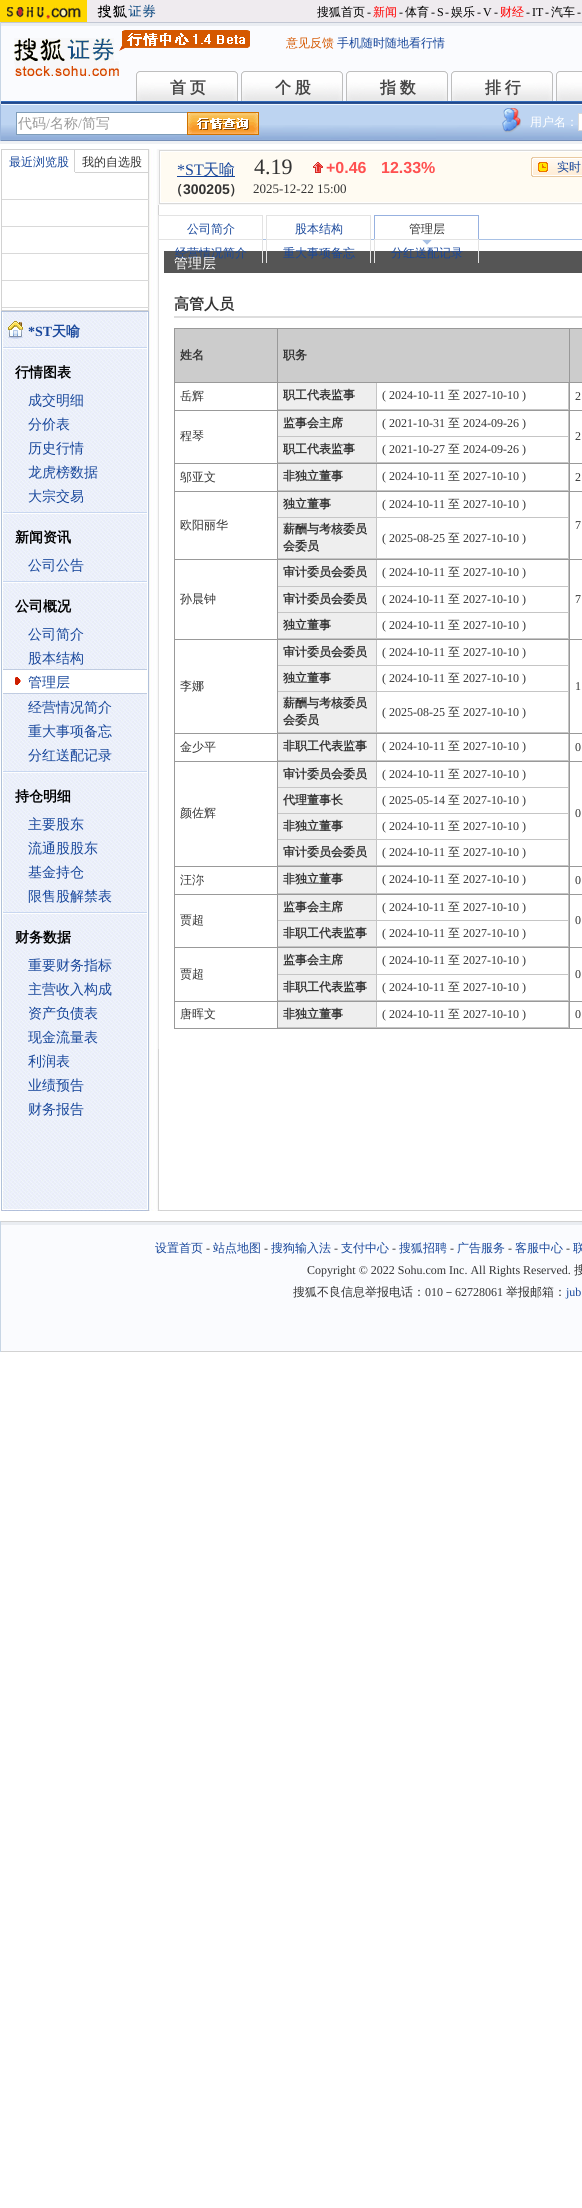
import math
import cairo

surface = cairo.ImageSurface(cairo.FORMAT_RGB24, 582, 2208)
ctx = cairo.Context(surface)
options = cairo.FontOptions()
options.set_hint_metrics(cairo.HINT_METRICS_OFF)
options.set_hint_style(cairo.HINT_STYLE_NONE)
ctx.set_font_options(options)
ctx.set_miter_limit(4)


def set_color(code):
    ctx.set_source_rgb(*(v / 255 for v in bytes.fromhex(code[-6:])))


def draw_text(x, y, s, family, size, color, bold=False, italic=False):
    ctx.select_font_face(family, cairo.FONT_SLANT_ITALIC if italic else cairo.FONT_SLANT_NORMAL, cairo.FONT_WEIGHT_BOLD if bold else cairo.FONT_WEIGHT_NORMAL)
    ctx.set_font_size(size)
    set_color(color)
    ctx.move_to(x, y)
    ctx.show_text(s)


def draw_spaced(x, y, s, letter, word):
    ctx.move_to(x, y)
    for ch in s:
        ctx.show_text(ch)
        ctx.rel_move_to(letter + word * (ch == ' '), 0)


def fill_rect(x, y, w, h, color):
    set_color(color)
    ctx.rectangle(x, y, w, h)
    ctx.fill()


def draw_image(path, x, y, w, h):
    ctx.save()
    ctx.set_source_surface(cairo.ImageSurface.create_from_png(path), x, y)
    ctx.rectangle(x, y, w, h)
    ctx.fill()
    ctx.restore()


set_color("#ffffff")
ctx.paint()
fill_rect(87, 0, 495, 22, "#efebef")
draw_image("assets/img1.png", 0, 0, 87, 22)
draw_image("assets/img2.png", 97, 4, 59, 14)
draw_text(317, 16, "搜狐首页", "WenQuanYi Zen Hei Medium", 12, "#000000")
draw_text(367, 16, "-", "Liberation Serif", 12, "#000000")
draw_text(373, 16, "新闻", "WenQuanYi Zen Hei Medium", 12, "#ff0000")
draw_text(399, 16, "-", "Liberation Serif", 12, "#000000")
draw_text(405, 16, "体育", "WenQuanYi Zen Hei Medium", 12, "#000000")
draw_text(431, 16, "-", "Liberation Serif", 12, "#000000")
draw_text(437, 16, "S", "Liberation Serif", 12, "#000000")
draw_text(445, 16, "-", "Liberation Serif", 12, "#000000")
draw_text(451, 16, "娱乐", "WenQuanYi Zen Hei Medium", 12, "#000000")
draw_text(477, 16, "-", "Liberation Serif", 12, "#000000")
draw_text(483, 16, "V", "Liberation Serif", 12, "#000000")
draw_text(494, 16, "-", "Liberation Serif", 12, "#000000")
draw_text(500, 16, "财经", "WenQuanYi Zen Hei Medium", 12, "#ff0000")
draw_text(526, 16, "-", "Liberation Serif", 12, "#000000")
draw_text(532, 16, "IT", "Liberation Serif", 12, "#000000")
draw_text(545, 16, "-", "Liberation Serif", 12, "#000000")
draw_text(551, 16, "汽车", "WenQuanYi Zen Hei Medium", 12, "#000000")
draw_text(577, 16, "-", "Liberation Serif", 12, "#000000")
fill_rect(1, 26, 581, 75, "#fafbfe")
fill_rect(0, 23, 582, 3, "#eaedf2")
fill_rect(0, 22, 582, 1, "#c2c7d4")
fill_rect(0, 22, 1, 82, "#c8d6e5")
draw_image("assets/img3.png", 14, 30, 236, 46)
draw_text(286, 47, "意见反馈", "WenQuanYi Zen Hei Medium", 12, "#d55800")
draw_text(337, 47, "手机随时随地看行情", "WenQuanYi Zen Hei Medium", 12, "#18479b")
draw_image("assets/img4.png", 136, 71, 102, 30)
ctx.select_font_face("WenQuanYi Zen Hei", cairo.FONT_SLANT_NORMAL, cairo.FONT_WEIGHT_BOLD)
ctx.set_font_size(16)
set_color("#464646")
draw_spaced(170, 93, "首 页", 0, -1)
draw_image("assets/img4.png", 241, 71, 102, 30)
draw_spaced(275, 93, "个 股", 0, -1)
draw_image("assets/img4.png", 346, 71, 102, 30)
draw_spaced(380, 93, "指 数", 0, -1)
draw_image("assets/img4.png", 451, 71, 102, 30)
draw_spaced(485, 93, "排 行", 0, -1)
draw_image("assets/img5.png", 556, 71, 26, 30)
fill_rect(1, 102, 581, 1, "#20488c")
fill_rect(1, 101, 581, 1, "#326ab8")
fill_rect(1, 103, 581, 1, "#2c5292")
fill_rect(1, 105, 581, 20, "#bdd4f1")
draw_image("assets/img6.png", 1, 125, 581, 15)
fill_rect(0, 104, 582, 1, "#eef7ff")
fill_rect(0, 140, 582, 1, "#758fb9")
fill_rect(0, 104, 1, 37, "#9bb7de")
set_color("#ffffff")
ctx.rectangle(16.5, 112.5, 171, 22)
ctx.fill_preserve()
set_color("#7f9db9")
ctx.set_line_width(1)
ctx.stroke()
draw_text(18, 128, "代码", "WenQuanYi Zen Hei Medium", 14, "#999999")
draw_text(46, 128, "/", "Liberation Serif", 14, "#999999")
draw_text(50, 128, "名称", "WenQuanYi Zen Hei Medium", 14, "#999999")
draw_text(78, 128, "/", "Liberation Serif", 14, "#999999")
draw_text(82, 128, "简写", "WenQuanYi Zen Hei Medium", 14, "#999999")
draw_image("assets/img7.png", 187, 112, 72, 23)
draw_image("assets/img8.png", 502, 108, 19, 25)
draw_text(530, 126, "用户名：", "WenQuanYi Zen Hei Medium", 12, "#ffffff")
ctx.rectangle(578.5, 113.5, 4, 17)
ctx.fill_preserve()
set_color("#d9d9d9")
ctx.stroke()
fill_rect(0, 141, 582, 3, "#eff1f4")
draw_image("assets/img9.png", 1, 149, 158, 1060)
fill_rect(2, 150, 145, 160, "#ffffff")
ctx.rectangle(1.5, 149.5, 147, 161)
set_color("#d2d2d2")
ctx.stroke()
fill_rect(75, 172, 73, 1, "#d2d2d2")
draw_text(9, 166, "最近浏览股", "WenQuanYi Zen Hei Medium", 12, "#18479b")
fill_rect(74, 150, 1, 22, "#d2d2d2")
draw_text(82, 166, "我的自选股", "WenQuanYi Zen Hei Medium", 12, "#333333")
fill_rect(2, 199, 147, 1, "#d9d9d9")
fill_rect(2, 226, 147, 1, "#d9d9d9")
fill_rect(2, 253, 147, 1, "#d9d9d9")
fill_rect(2, 280, 147, 1, "#d9d9d9")
fill_rect(2, 307, 147, 1, "#d9d9d9")
fill_rect(1, 311, 148, 1, "#b1c1dc")
fill_rect(3, 347, 144, 1, "#c8d7f0")
draw_image("assets/img10.png", 8, 321, 15, 18)
draw_text(28, 336, "*ST", "Liberation Serif", 14, "#18479b", bold=True)
draw_text(52, 336, "天喻", "WenQuanYi Zen Hei", 14, "#18479b", bold=True)
fill_rect(3, 348, 144, 1, "#fefefe")
fill_rect(3, 512, 144, 1, "#c8d7f0")
draw_text(15, 377, "行情图表", "WenQuanYi Zen Hei", 14, "#000000", bold=True)
draw_text(28, 405, "成交明细", "WenQuanYi Zen Hei Medium", 14, "#18479b")
draw_text(28, 429, "分价表", "WenQuanYi Zen Hei Medium", 14, "#18479b")
draw_text(28, 453, "历史行情", "WenQuanYi Zen Hei Medium", 14, "#18479b")
draw_text(28, 477, "龙虎榜数据", "WenQuanYi Zen Hei Medium", 14, "#18479b")
draw_text(28, 501, "大宗交易", "WenQuanYi Zen Hei Medium", 14, "#18479b")
fill_rect(3, 513, 144, 1, "#fefefe")
fill_rect(3, 581, 144, 1, "#c8d7f0")
draw_text(15, 542, "新闻资讯", "WenQuanYi Zen Hei", 14, "#000000", bold=True)
draw_text(28, 570, "公司公告", "WenQuanYi Zen Hei Medium", 14, "#18479b")
fill_rect(3, 582, 144, 1, "#fefefe")
fill_rect(3, 771, 144, 1, "#c8d7f0")
draw_text(15, 611, "公司概况", "WenQuanYi Zen Hei", 14, "#000000", bold=True)
draw_text(28, 639, "公司简介", "WenQuanYi Zen Hei Medium", 14, "#18479b")
draw_text(28, 663, "股本结构", "WenQuanYi Zen Hei Medium", 14, "#18479b")
fill_rect(3, 670, 144, 23, "#ffffff")
draw_image("assets/img11.png", 15, 677, 6, 8)
fill_rect(3, 669, 144, 1, "#c0cce1")
fill_rect(3, 693, 144, 1, "#c0cce1")
draw_text(28, 687, "管理层", "WenQuanYi Zen Hei Medium", 14, "#18479b")
draw_text(28, 712, "经营情况简介", "WenQuanYi Zen Hei Medium", 14, "#18479b")
draw_text(28, 736, "重大事项备忘", "WenQuanYi Zen Hei Medium", 14, "#18479b")
draw_text(28, 760, "分红送配记录", "WenQuanYi Zen Hei Medium", 14, "#18479b")
fill_rect(3, 772, 144, 1, "#fefefe")
fill_rect(3, 912, 144, 1, "#c8d7f0")
draw_text(15, 801, "持仓明细", "WenQuanYi Zen Hei", 14, "#000000", bold=True)
draw_text(28, 829, "主要股东", "WenQuanYi Zen Hei Medium", 14, "#18479b")
draw_text(28, 853, "流通股股东", "WenQuanYi Zen Hei Medium", 14, "#18479b")
draw_text(28, 877, "基金持仓", "WenQuanYi Zen Hei Medium", 14, "#18479b")
draw_text(28, 901, "限售股解禁表", "WenQuanYi Zen Hei Medium", 14, "#18479b")
fill_rect(3, 913, 144, 1, "#fefefe")
draw_text(15, 942, "财务数据", "WenQuanYi Zen Hei", 14, "#000000", bold=True)
draw_text(28, 970, "重要财务指标", "WenQuanYi Zen Hei Medium", 14, "#18479b")
draw_text(28, 994, "主营收入构成", "WenQuanYi Zen Hei Medium", 14, "#18479b")
draw_text(28, 1018, "资产负债表", "WenQuanYi Zen Hei Medium", 14, "#18479b")
draw_text(28, 1042, "现金流量表", "WenQuanYi Zen Hei Medium", 14, "#18479b")
draw_text(28, 1066, "利润表", "WenQuanYi Zen Hei Medium", 14, "#18479b")
draw_text(28, 1090, "业绩预告", "WenQuanYi Zen Hei Medium", 14, "#18479b")
draw_text(28, 1114, "财务报告", "WenQuanYi Zen Hei Medium", 14, "#18479b")
ctx.rectangle(158.5, 149.5, 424, 55)
set_color("#f6f6f6")
ctx.stroke()
ctx.rectangle(159.5, 150.5, 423, 53)
set_color("#d9d9d9")
ctx.stroke()
fill_rect(161, 152, 421, 50, "#fffbf2")
draw_text(177, 175, "*ST", "Liberation Serif", 16, "#18479b")
fill_rect(177, 176, 58, 1, "#18479b")
draw_text(203, 175, "天喻", "WenQuanYi Zen Hei Medium", 16, "#18479b")
draw_text(169, 194, "（", "WenQuanYi Zen Hei", 14, "#333333", bold=True)
draw_text(183, 194, "300205", "Liberation Sans", 14, "#333333", bold=True)
draw_text(229, 194, "）", "WenQuanYi Zen Hei", 14, "#333333", bold=True)
draw_text(254, 174, "4.19", "Liberation Serif", 22, "#333333")
draw_image("assets/img12.png", 313, 162, 10, 11)
draw_text(326, 173, "+0.46", "Liberation Sans", 16, "#ff5050", bold=True)
draw_text(381, 173, "12.33%", "Liberation Sans", 16, "#ff5050", bold=True)
draw_image("assets/img13.png", 531, 157, 51, 20)
draw_text(557, 171, "实时", "WenQuanYi Zen Hei Medium", 12, "#18479b")
draw_text(253, 193, "2025-12-22 15:00", "Liberation Serif", 13, "#333333")
fill_rect(158, 215, 105, 1, "#e3e3e3")
fill_rect(262, 215, 1, 24, "#e3e3e3")
fill_rect(158, 215, 1, 24, "#e3e3e3")
draw_text(187, 233, "公司简介", "WenQuanYi Zen Hei Medium", 12, "#18479b")
fill_rect(266, 215, 105, 1, "#e3e3e3")
fill_rect(370, 215, 1, 24, "#e3e3e3")
fill_rect(266, 215, 1, 24, "#e3e3e3")
draw_text(295, 233, "股本结构", "WenQuanYi Zen Hei Medium", 12, "#18479b")
fill_rect(374, 215, 105, 1, "#97b1e0")
fill_rect(478, 215, 1, 24, "#97b1e0")
fill_rect(374, 215, 1, 24, "#97b1e0")
draw_text(409, 233, "管理层", "WenQuanYi Zen Hei Medium", 12, "#333333")
fill_rect(263, 239, 319, 1, "#a8c1e5")
ctx.new_path()
ctx.move_to(421, 239)
ctx.line_to(433, 239)
ctx.line_to(427, 245)
ctx.close_path()
ctx.fill()
set_color("#ffffff")
ctx.new_path()
ctx.move_to(433, 239)
ctx.line_to(433, 251)
ctx.line_to(427, 245)
ctx.close_path()
ctx.move_to(421, 251)
ctx.line_to(421, 239)
ctx.line_to(427, 245)
ctx.close_path()
ctx.fill()
fill_rect(158, 239, 1, 810, "#e2e2e2")
fill_rect(158, 239, 105, 1, "#e3e3e3")
fill_rect(164, 251, 418, 22, "#555555")
fill_rect(262, 239, 1, 24, "#e3e3e3")
draw_text(175, 257, "经营情况简介", "WenQuanYi Zen Hei Medium", 12, "#18479b")
fill_rect(266, 239, 105, 1, "#e3e3e3")
fill_rect(370, 239, 1, 24, "#e3e3e3")
fill_rect(266, 239, 1, 24, "#e3e3e3")
draw_text(283, 257, "重大事项备忘", "WenQuanYi Zen Hei Medium", 12, "#18479b")
fill_rect(374, 239, 105, 1, "#e3e3e3")
fill_rect(478, 239, 1, 24, "#e3e3e3")
fill_rect(374, 239, 1, 24, "#e3e3e3")
draw_text(391, 257, "分红送配记录", "WenQuanYi Zen Hei Medium", 12, "#18479b")
draw_text(174, 268, "管理层", "WenQuanYi Zen Hei Medium", 14, "#ffffff")
fill_rect(174, 316, 408, 2, "#dddddd")
draw_text(174, 309, "高管人员", "WenQuanYi Zen Hei", 15, "#333333", bold=True)
fill_rect(175, 329, 102, 53, "#cccccc")
fill_rect(569, 328, 13, 1, "#999999")
fill_rect(569, 382, 13, 1, "#999999")
fill_rect(568, 410, 1, 53, "#c5c5c5")
fill_rect(376, 462, 193, 1, "#c5c5c5")
fill_rect(376, 436, 1, 27, "#c5c5c5")
fill_rect(376, 436, 193, 1, "#c5c5c5")
fill_rect(376, 410, 1, 27, "#c5c5c5")
fill_rect(569, 410, 13, 1, "#999999")
fill_rect(569, 463, 13, 1, "#999999")
fill_rect(568, 491, 1, 68, "#c5c5c5")
fill_rect(376, 558, 193, 1, "#c5c5c5")
fill_rect(376, 517, 1, 42, "#c5c5c5")
fill_rect(376, 517, 193, 1, "#c5c5c5")
fill_rect(376, 491, 1, 27, "#c5c5c5")
fill_rect(569, 491, 13, 1, "#999999")
fill_rect(569, 559, 13, 1, "#999999")
fill_rect(568, 639, 1, 94, "#c5c5c5")
fill_rect(376, 732, 193, 1, "#c5c5c5")
fill_rect(376, 691, 1, 42, "#c5c5c5")
fill_rect(376, 691, 193, 1, "#c5c5c5")
fill_rect(376, 665, 1, 27, "#c5c5c5")
fill_rect(376, 665, 193, 1, "#c5c5c5")
fill_rect(376, 639, 1, 27, "#c5c5c5")
fill_rect(569, 639, 13, 1, "#999999")
fill_rect(569, 733, 13, 1, "#999999")
fill_rect(568, 761, 1, 105, "#c5c5c5")
fill_rect(376, 865, 193, 1, "#c5c5c5")
fill_rect(376, 839, 1, 27, "#c5c5c5")
fill_rect(376, 839, 193, 1, "#c5c5c5")
fill_rect(376, 813, 1, 27, "#c5c5c5")
fill_rect(376, 813, 193, 1, "#c5c5c5")
fill_rect(376, 787, 1, 27, "#c5c5c5")
fill_rect(376, 787, 193, 1, "#c5c5c5")
fill_rect(376, 761, 1, 27, "#c5c5c5")
fill_rect(569, 761, 13, 1, "#999999")
fill_rect(569, 866, 13, 1, "#999999")
fill_rect(568, 894, 1, 53, "#c5c5c5")
fill_rect(376, 946, 193, 1, "#c5c5c5")
fill_rect(376, 920, 1, 27, "#c5c5c5")
fill_rect(376, 920, 193, 1, "#c5c5c5")
fill_rect(376, 894, 1, 27, "#c5c5c5")
fill_rect(569, 894, 13, 1, "#999999")
fill_rect(569, 947, 13, 1, "#999999")
fill_rect(568, 948, 1, 80, "#c5c5c5")
fill_rect(376, 1027, 193, 1, "#c5c5c5")
fill_rect(376, 1001, 1, 27, "#c5c5c5")
fill_rect(569, 1001, 13, 1, "#999999")
fill_rect(569, 1028, 13, 1, "#999999")
fill_rect(569, 1001, 1, 28, "#999999")
fill_rect(277, 1001, 293, 1, "#999999")
fill_rect(569, 947, 1, 55, "#999999")
fill_rect(277, 947, 293, 1, "#999999")
fill_rect(569, 894, 1, 54, "#999999")
fill_rect(277, 894, 293, 1, "#999999")
fill_rect(569, 866, 1, 29, "#999999")
fill_rect(277, 866, 293, 1, "#999999")
fill_rect(569, 761, 1, 106, "#999999")
fill_rect(277, 761, 293, 1, "#999999")
fill_rect(569, 733, 1, 29, "#999999")
fill_rect(277, 733, 293, 1, "#999999")
fill_rect(569, 639, 1, 95, "#999999")
fill_rect(277, 639, 293, 1, "#999999")
fill_rect(569, 559, 1, 81, "#999999")
fill_rect(277, 559, 293, 1, "#999999")
fill_rect(569, 491, 1, 69, "#999999")
fill_rect(277, 491, 293, 1, "#999999")
fill_rect(569, 463, 1, 29, "#999999")
fill_rect(277, 463, 293, 1, "#999999")
fill_rect(569, 410, 1, 54, "#999999")
fill_rect(277, 410, 293, 1, "#999999")
fill_rect(569, 382, 1, 29, "#999999")
fill_rect(277, 382, 293, 1, "#999999")
fill_rect(569, 328, 1, 55, "#999999")
fill_rect(277, 328, 293, 1, "#999999")
fill_rect(568, 383, 1, 27, "#c5c5c5")
fill_rect(376, 409, 193, 1, "#c5c5c5")
fill_rect(376, 383, 1, 27, "#c5c5c5")
fill_rect(277, 409, 100, 1, "#c5c5c5")
fill_rect(277, 436, 100, 1, "#c5c5c5")
fill_rect(277, 462, 100, 1, "#c5c5c5")
fill_rect(568, 464, 1, 27, "#c5c5c5")
fill_rect(376, 490, 193, 1, "#c5c5c5")
fill_rect(376, 464, 1, 27, "#c5c5c5")
fill_rect(277, 490, 100, 1, "#c5c5c5")
fill_rect(277, 517, 100, 1, "#c5c5c5")
fill_rect(277, 558, 100, 1, "#c5c5c5")
fill_rect(568, 560, 1, 79, "#c5c5c5")
fill_rect(376, 638, 193, 1, "#c5c5c5")
fill_rect(376, 612, 1, 27, "#c5c5c5")
fill_rect(376, 612, 193, 1, "#c5c5c5")
fill_rect(376, 586, 1, 27, "#c5c5c5")
fill_rect(376, 586, 193, 1, "#c5c5c5")
fill_rect(376, 560, 1, 27, "#c5c5c5")
fill_rect(277, 586, 100, 1, "#c5c5c5")
fill_rect(277, 612, 100, 1, "#c5c5c5")
fill_rect(277, 638, 100, 1, "#c5c5c5")
fill_rect(277, 665, 100, 1, "#c5c5c5")
fill_rect(277, 691, 100, 1, "#c5c5c5")
fill_rect(277, 732, 100, 1, "#c5c5c5")
fill_rect(568, 734, 1, 27, "#c5c5c5")
fill_rect(376, 760, 193, 1, "#c5c5c5")
fill_rect(376, 734, 1, 27, "#c5c5c5")
fill_rect(277, 760, 100, 1, "#c5c5c5")
fill_rect(277, 787, 100, 1, "#c5c5c5")
fill_rect(277, 813, 100, 1, "#c5c5c5")
fill_rect(277, 839, 100, 1, "#c5c5c5")
fill_rect(277, 865, 100, 1, "#c5c5c5")
fill_rect(568, 867, 1, 27, "#c5c5c5")
fill_rect(376, 893, 193, 1, "#c5c5c5")
fill_rect(376, 867, 1, 27, "#c5c5c5")
fill_rect(277, 893, 100, 1, "#c5c5c5")
fill_rect(277, 920, 100, 1, "#c5c5c5")
fill_rect(277, 946, 100, 1, "#c5c5c5")
fill_rect(376, 1000, 193, 1, "#c5c5c5")
fill_rect(376, 974, 1, 27, "#c5c5c5")
fill_rect(376, 974, 193, 1, "#c5c5c5")
fill_rect(376, 948, 1, 27, "#c5c5c5")
fill_rect(277, 974, 100, 1, "#c5c5c5")
fill_rect(277, 1000, 100, 1, "#c5c5c5")
fill_rect(277, 1028, 293, 1, "#999999")
fill_rect(277, 1027, 100, 1, "#c5c5c5")
fill_rect(277, 1001, 1, 28, "#999999")
fill_rect(174, 1001, 104, 1, "#999999")
fill_rect(277, 947, 1, 55, "#999999")
fill_rect(174, 947, 104, 1, "#999999")
fill_rect(277, 894, 1, 54, "#999999")
fill_rect(174, 894, 104, 1, "#999999")
fill_rect(277, 866, 1, 29, "#999999")
fill_rect(174, 866, 104, 1, "#999999")
fill_rect(277, 761, 1, 106, "#999999")
fill_rect(174, 761, 104, 1, "#999999")
fill_rect(277, 733, 1, 29, "#999999")
fill_rect(174, 733, 104, 1, "#999999")
fill_rect(277, 639, 1, 95, "#999999")
fill_rect(174, 639, 104, 1, "#999999")
fill_rect(277, 559, 1, 81, "#999999")
fill_rect(174, 559, 104, 1, "#999999")
fill_rect(277, 491, 1, 69, "#999999")
fill_rect(174, 491, 104, 1, "#999999")
fill_rect(277, 463, 1, 29, "#999999")
fill_rect(174, 463, 104, 1, "#999999")
fill_rect(277, 410, 1, 54, "#999999")
fill_rect(174, 410, 104, 1, "#999999")
fill_rect(277, 382, 1, 29, "#999999")
fill_rect(174, 382, 104, 1, "#999999")
fill_rect(277, 328, 1, 55, "#999999")
fill_rect(174, 328, 104, 1, "#999999")
fill_rect(174, 1028, 104, 1, "#999999")
fill_rect(174, 1001, 1, 28, "#999999")
fill_rect(174, 947, 1, 55, "#999999")
fill_rect(174, 894, 1, 54, "#999999")
fill_rect(174, 866, 1, 29, "#999999")
fill_rect(174, 761, 1, 106, "#999999")
fill_rect(174, 733, 1, 29, "#999999")
fill_rect(174, 639, 1, 95, "#999999")
fill_rect(174, 559, 1, 81, "#999999")
fill_rect(174, 491, 1, 69, "#999999")
fill_rect(174, 463, 1, 29, "#999999")
fill_rect(174, 410, 1, 54, "#999999")
fill_rect(174, 382, 1, 29, "#999999")
fill_rect(174, 328, 1, 55, "#999999")
draw_text(180, 359, "姓名", "WenQuanYi Zen Hei", 12, "#333333", bold=True)
fill_rect(278, 329, 291, 53, "#cccccc")
draw_text(283, 359, "职务", "WenQuanYi Zen Hei", 12, "#333333", bold=True)
fill_rect(570, 329, 12, 53, "#cccccc")
draw_text(180, 400, "岳辉", "WenQuanYi Zen Hei Medium", 12, "#333333")
fill_rect(278, 383, 98, 26, "#eeeeee")
draw_text(283, 399, "职工代表监事", "WenQuanYi Zen Hei", 12, "#333333", bold=True)
draw_text(382, 399, "( 2024-10-11", "Liberation Serif", 12, "#333333")
draw_text(448, 399, "至", "WenQuanYi Zen Hei Medium", 12, "#333333")
draw_text(463, 399, "2027-10-10 )", "Liberation Serif", 12, "#333333")
draw_text(575, 400, "2", "Liberation Serif", 12, "#333333")
draw_text(180, 440, "程琴", "WenQuanYi Zen Hei Medium", 12, "#333333")
fill_rect(278, 411, 98, 25, "#eeeeee")
draw_text(283, 427, "监事会主席", "WenQuanYi Zen Hei", 12, "#333333", bold=True)
draw_text(382, 427, "( 2021-10-31", "Liberation Serif", 12, "#333333")
draw_text(448, 427, "至", "WenQuanYi Zen Hei Medium", 12, "#333333")
draw_text(463, 427, "2024-09-26 )", "Liberation Serif", 12, "#333333")
fill_rect(278, 437, 98, 25, "#eeeeee")
draw_text(283, 453, "职工代表监事", "WenQuanYi Zen Hei", 12, "#333333", bold=True)
draw_text(382, 453, "( 2021-10-27", "Liberation Serif", 12, "#333333")
draw_text(448, 453, "至", "WenQuanYi Zen Hei Medium", 12, "#333333")
draw_text(463, 453, "2024-09-26 )", "Liberation Serif", 12, "#333333")
draw_text(575, 440, "2", "Liberation Serif", 12, "#333333")
draw_text(180, 481, "邬亚文", "WenQuanYi Zen Hei Medium", 12, "#333333")
fill_rect(278, 464, 98, 26, "#eeeeee")
draw_text(283, 480, "非独立董事", "WenQuanYi Zen Hei", 12, "#333333", bold=True)
draw_text(382, 480, "( 2024-10-11", "Liberation Serif", 12, "#333333")
draw_text(448, 480, "至", "WenQuanYi Zen Hei Medium", 12, "#333333")
draw_text(463, 480, "2027-10-10 )", "Liberation Serif", 12, "#333333")
draw_text(575, 481, "2", "Liberation Serif", 12, "#333333")
draw_text(180, 529, "欧阳丽华", "WenQuanYi Zen Hei Medium", 12, "#333333")
fill_rect(278, 492, 98, 25, "#eeeeee")
draw_text(283, 508, "独立董事", "WenQuanYi Zen Hei", 12, "#333333", bold=True)
draw_text(382, 508, "( 2024-10-11", "Liberation Serif", 12, "#333333")
draw_text(448, 508, "至", "WenQuanYi Zen Hei Medium", 12, "#333333")
draw_text(463, 508, "2027-10-10 )", "Liberation Serif", 12, "#333333")
fill_rect(278, 518, 98, 40, "#eeeeee")
draw_text(283, 533, "薪酬与考核委员", "WenQuanYi Zen Hei", 12, "#333333", bold=True)
draw_text(283, 550, "会委员", "WenQuanYi Zen Hei", 12, "#333333", bold=True)
draw_text(382, 542, "( 2025-08-25", "Liberation Serif", 12, "#333333")
draw_text(448, 542, "至", "WenQuanYi Zen Hei Medium", 12, "#333333")
draw_text(463, 542, "2027-10-10 )", "Liberation Serif", 12, "#333333")
draw_text(575, 529, "7", "Liberation Serif", 12, "#333333")
draw_text(180, 603, "孙晨钟", "WenQuanYi Zen Hei Medium", 12, "#333333")
fill_rect(278, 560, 98, 26, "#eeeeee")
draw_text(283, 576, "审计委员会委员", "WenQuanYi Zen Hei", 12, "#333333", bold=True)
draw_text(382, 576, "( 2024-10-11", "Liberation Serif", 12, "#333333")
draw_text(448, 576, "至", "WenQuanYi Zen Hei Medium", 12, "#333333")
draw_text(463, 576, "2027-10-10 )", "Liberation Serif", 12, "#333333")
fill_rect(278, 587, 98, 25, "#eeeeee")
draw_text(283, 603, "审计委员会委员", "WenQuanYi Zen Hei", 12, "#333333", bold=True)
draw_text(382, 603, "( 2024-10-11", "Liberation Serif", 12, "#333333")
draw_text(448, 603, "至", "WenQuanYi Zen Hei Medium", 12, "#333333")
draw_text(463, 603, "2027-10-10 )", "Liberation Serif", 12, "#333333")
fill_rect(278, 613, 98, 25, "#eeeeee")
draw_text(283, 629, "独立董事", "WenQuanYi Zen Hei", 12, "#333333", bold=True)
draw_text(382, 629, "( 2024-10-11", "Liberation Serif", 12, "#333333")
draw_text(448, 629, "至", "WenQuanYi Zen Hei Medium", 12, "#333333")
draw_text(463, 629, "2027-10-10 )", "Liberation Serif", 12, "#333333")
draw_text(575, 603, "7", "Liberation Serif", 12, "#333333")
draw_text(180, 690, "李娜", "WenQuanYi Zen Hei Medium", 12, "#333333")
fill_rect(278, 640, 98, 25, "#eeeeee")
draw_text(283, 656, "审计委员会委员", "WenQuanYi Zen Hei", 12, "#333333", bold=True)
draw_text(382, 656, "( 2024-10-11", "Liberation Serif", 12, "#333333")
draw_text(448, 656, "至", "WenQuanYi Zen Hei Medium", 12, "#333333")
draw_text(463, 656, "2027-10-10 )", "Liberation Serif", 12, "#333333")
fill_rect(278, 666, 98, 25, "#eeeeee")
draw_text(283, 682, "独立董事", "WenQuanYi Zen Hei", 12, "#333333", bold=True)
draw_text(382, 682, "( 2024-10-11", "Liberation Serif", 12, "#333333")
draw_text(448, 682, "至", "WenQuanYi Zen Hei Medium", 12, "#333333")
draw_text(463, 682, "2027-10-10 )", "Liberation Serif", 12, "#333333")
fill_rect(278, 692, 98, 40, "#eeeeee")
draw_text(283, 707, "薪酬与考核委员", "WenQuanYi Zen Hei", 12, "#333333", bold=True)
draw_text(283, 724, "会委员", "WenQuanYi Zen Hei", 12, "#333333", bold=True)
draw_text(382, 716, "( 2025-08-25", "Liberation Serif", 12, "#333333")
draw_text(448, 716, "至", "WenQuanYi Zen Hei Medium", 12, "#333333")
draw_text(463, 716, "2027-10-10 )", "Liberation Serif", 12, "#333333")
draw_text(575, 690, "1", "Liberation Serif", 12, "#333333")
draw_text(180, 751, "金少平", "WenQuanYi Zen Hei Medium", 12, "#333333")
fill_rect(278, 734, 98, 26, "#eeeeee")
draw_text(283, 750, "非职工代表监事", "WenQuanYi Zen Hei", 12, "#333333", bold=True)
draw_text(382, 750, "( 2024-10-11", "Liberation Serif", 12, "#333333")
draw_text(448, 750, "至", "WenQuanYi Zen Hei Medium", 12, "#333333")
draw_text(463, 750, "2027-10-10 )", "Liberation Serif", 12, "#333333")
draw_text(575, 751, "0", "Liberation Serif", 12, "#333333")
draw_text(180, 817, "颜佐辉", "WenQuanYi Zen Hei Medium", 12, "#333333")
fill_rect(278, 762, 98, 25, "#eeeeee")
draw_text(283, 778, "审计委员会委员", "WenQuanYi Zen Hei", 12, "#333333", bold=True)
draw_text(382, 778, "( 2024-10-11", "Liberation Serif", 12, "#333333")
draw_text(448, 778, "至", "WenQuanYi Zen Hei Medium", 12, "#333333")
draw_text(463, 778, "2027-10-10 )", "Liberation Serif", 12, "#333333")
fill_rect(278, 788, 98, 25, "#eeeeee")
draw_text(283, 804, "代理董事长", "WenQuanYi Zen Hei", 12, "#333333", bold=True)
draw_text(382, 804, "( 2025-05-14", "Liberation Serif", 12, "#333333")
draw_text(448, 804, "至", "WenQuanYi Zen Hei Medium", 12, "#333333")
draw_text(463, 804, "2027-10-10 )", "Liberation Serif", 12, "#333333")
fill_rect(278, 814, 98, 25, "#eeeeee")
draw_text(283, 830, "非独立董事", "WenQuanYi Zen Hei", 12, "#333333", bold=True)
draw_text(382, 830, "( 2024-10-11", "Liberation Serif", 12, "#333333")
draw_text(448, 830, "至", "WenQuanYi Zen Hei Medium", 12, "#333333")
draw_text(463, 830, "2027-10-10 )", "Liberation Serif", 12, "#333333")
fill_rect(278, 840, 98, 25, "#eeeeee")
draw_text(283, 856, "审计委员会委员", "WenQuanYi Zen Hei", 12, "#333333", bold=True)
draw_text(382, 856, "( 2024-10-11", "Liberation Serif", 12, "#333333")
draw_text(448, 856, "至", "WenQuanYi Zen Hei Medium", 12, "#333333")
draw_text(463, 856, "2027-10-10 )", "Liberation Serif", 12, "#333333")
draw_text(575, 817, "0", "Liberation Serif", 12, "#333333")
draw_text(180, 884, "汪沵", "WenQuanYi Zen Hei Medium", 12, "#333333")
fill_rect(278, 867, 98, 26, "#eeeeee")
draw_text(283, 883, "非独立董事", "WenQuanYi Zen Hei", 12, "#333333", bold=True)
draw_text(382, 883, "( 2024-10-11", "Liberation Serif", 12, "#333333")
draw_text(448, 883, "至", "WenQuanYi Zen Hei Medium", 12, "#333333")
draw_text(463, 883, "2027-10-10 )", "Liberation Serif", 12, "#333333")
draw_text(575, 884, "0", "Liberation Serif", 12, "#333333")
draw_text(180, 924, "贾超", "WenQuanYi Zen Hei Medium", 12, "#333333")
fill_rect(278, 895, 98, 25, "#eeeeee")
draw_text(283, 911, "监事会主席", "WenQuanYi Zen Hei", 12, "#333333", bold=True)
draw_text(382, 911, "( 2024-10-11", "Liberation Serif", 12, "#333333")
draw_text(448, 911, "至", "WenQuanYi Zen Hei Medium", 12, "#333333")
draw_text(463, 911, "2027-10-10 )", "Liberation Serif", 12, "#333333")
fill_rect(278, 921, 98, 25, "#eeeeee")
draw_text(283, 937, "非职工代表监事", "WenQuanYi Zen Hei", 12, "#333333", bold=True)
draw_text(382, 937, "( 2024-10-11", "Liberation Serif", 12, "#333333")
draw_text(448, 937, "至", "WenQuanYi Zen Hei Medium", 12, "#333333")
draw_text(463, 937, "2027-10-10 )", "Liberation Serif", 12, "#333333")
draw_text(575, 924, "0", "Liberation Serif", 12, "#333333")
draw_text(180, 978, "贾超", "WenQuanYi Zen Hei Medium", 12, "#333333")
fill_rect(278, 948, 98, 26, "#eeeeee")
draw_text(283, 964, "监事会主席", "WenQuanYi Zen Hei", 12, "#333333", bold=True)
draw_text(382, 964, "( 2024-10-11", "Liberation Serif", 12, "#333333")
draw_text(448, 964, "至", "WenQuanYi Zen Hei Medium", 12, "#333333")
draw_text(463, 964, "2027-10-10 )", "Liberation Serif", 12, "#333333")
fill_rect(278, 975, 98, 25, "#eeeeee")
draw_text(283, 991, "非职工代表监事", "WenQuanYi Zen Hei", 12, "#333333", bold=True)
draw_text(382, 991, "( 2024-10-11", "Liberation Serif", 12, "#333333")
draw_text(448, 991, "至", "WenQuanYi Zen Hei Medium", 12, "#333333")
draw_text(463, 991, "2027-10-10 )", "Liberation Serif", 12, "#333333")
draw_text(575, 978, "0", "Liberation Serif", 12, "#333333")
draw_text(180, 1018, "唐晖文", "WenQuanYi Zen Hei Medium", 12, "#333333")
fill_rect(278, 1002, 98, 25, "#eeeeee")
draw_text(283, 1018, "非独立董事", "WenQuanYi Zen Hei", 12, "#333333", bold=True)
draw_text(382, 1018, "( 2024-10-11", "Liberation Serif", 12, "#333333")
draw_text(448, 1018, "至", "WenQuanYi Zen Hei Medium", 12, "#333333")
draw_text(463, 1018, "2027-10-10 )", "Liberation Serif", 12, "#333333")
draw_text(575, 1018, "0", "Liberation Serif", 12, "#333333")
draw_image("assets/img14.png", 1, 1209, 581, 2)
fill_rect(1, 1225, 581, 126, "#fafbfe")
fill_rect(0, 1222, 582, 3, "#eaedf2")
fill_rect(0, 1221, 582, 1, "#d2d2d2")
fill_rect(0, 1351, 582, 1, "#d2d2d2")
fill_rect(0, 1221, 1, 131, "#c8d6e5")
draw_text(155, 1252, "设置首页", "WenQuanYi Zen Hei Medium", 12, "#18479b")
draw_text(206, 1252, "-", "Liberation Serif", 12, "#333333")
draw_text(213, 1252, "站点地图", "WenQuanYi Zen Hei Medium", 12, "#18479b")
draw_text(264, 1252, "-", "Liberation Serif", 12, "#333333")
draw_text(271, 1252, "搜狗输入法", "WenQuanYi Zen Hei Medium", 12, "#18479b")
draw_text(334, 1252, "-", "Liberation Serif", 12, "#333333")
draw_text(341, 1252, "支付中心", "WenQuanYi Zen Hei Medium", 12, "#18479b")
draw_text(392, 1252, "-", "Liberation Serif", 12, "#333333")
draw_text(399, 1252, "搜狐招聘", "WenQuanYi Zen Hei Medium", 12, "#18479b")
draw_text(450, 1252, "-", "Liberation Serif", 12, "#333333")
draw_text(457, 1252, "广告服务", "WenQuanYi Zen Hei Medium", 12, "#18479b")
draw_text(508, 1252, "-", "Liberation Serif", 12, "#333333")
draw_text(515, 1252, "客服中心", "WenQuanYi Zen Hei Medium", 12, "#18479b")
draw_text(566, 1252, "-", "Liberation Serif", 12, "#333333")
draw_text(573, 1252, "联", "WenQuanYi Zen Hei Medium", 12, "#18479b")
draw_text(307, 1274, "Copyright © 2022 Sohu.com Inc. All Rights Reserved.", "Liberation Serif", 12, "#333333")
draw_text(574, 1274, "搜", "WenQuanYi Zen Hei Medium", 12, "#333333")
draw_text(293, 1296, "搜狐不良信息举报电话：", "WenQuanYi Zen Hei Medium", 12, "#333333")
draw_text(425, 1296, "010", "Liberation Serif", 12, "#333333")
draw_text(443, 1296, "－", "WenQuanYi Zen Hei Medium", 12, "#333333")
draw_text(455, 1296, "62728061", "Liberation Serif", 12, "#333333")
draw_text(506, 1296, "举报邮箱：", "WenQuanYi Zen Hei Medium", 12, "#333333")
draw_text(566, 1296, "jub", "Liberation Serif", 12, "#18479b")
surface.write_to_png("output.png")
